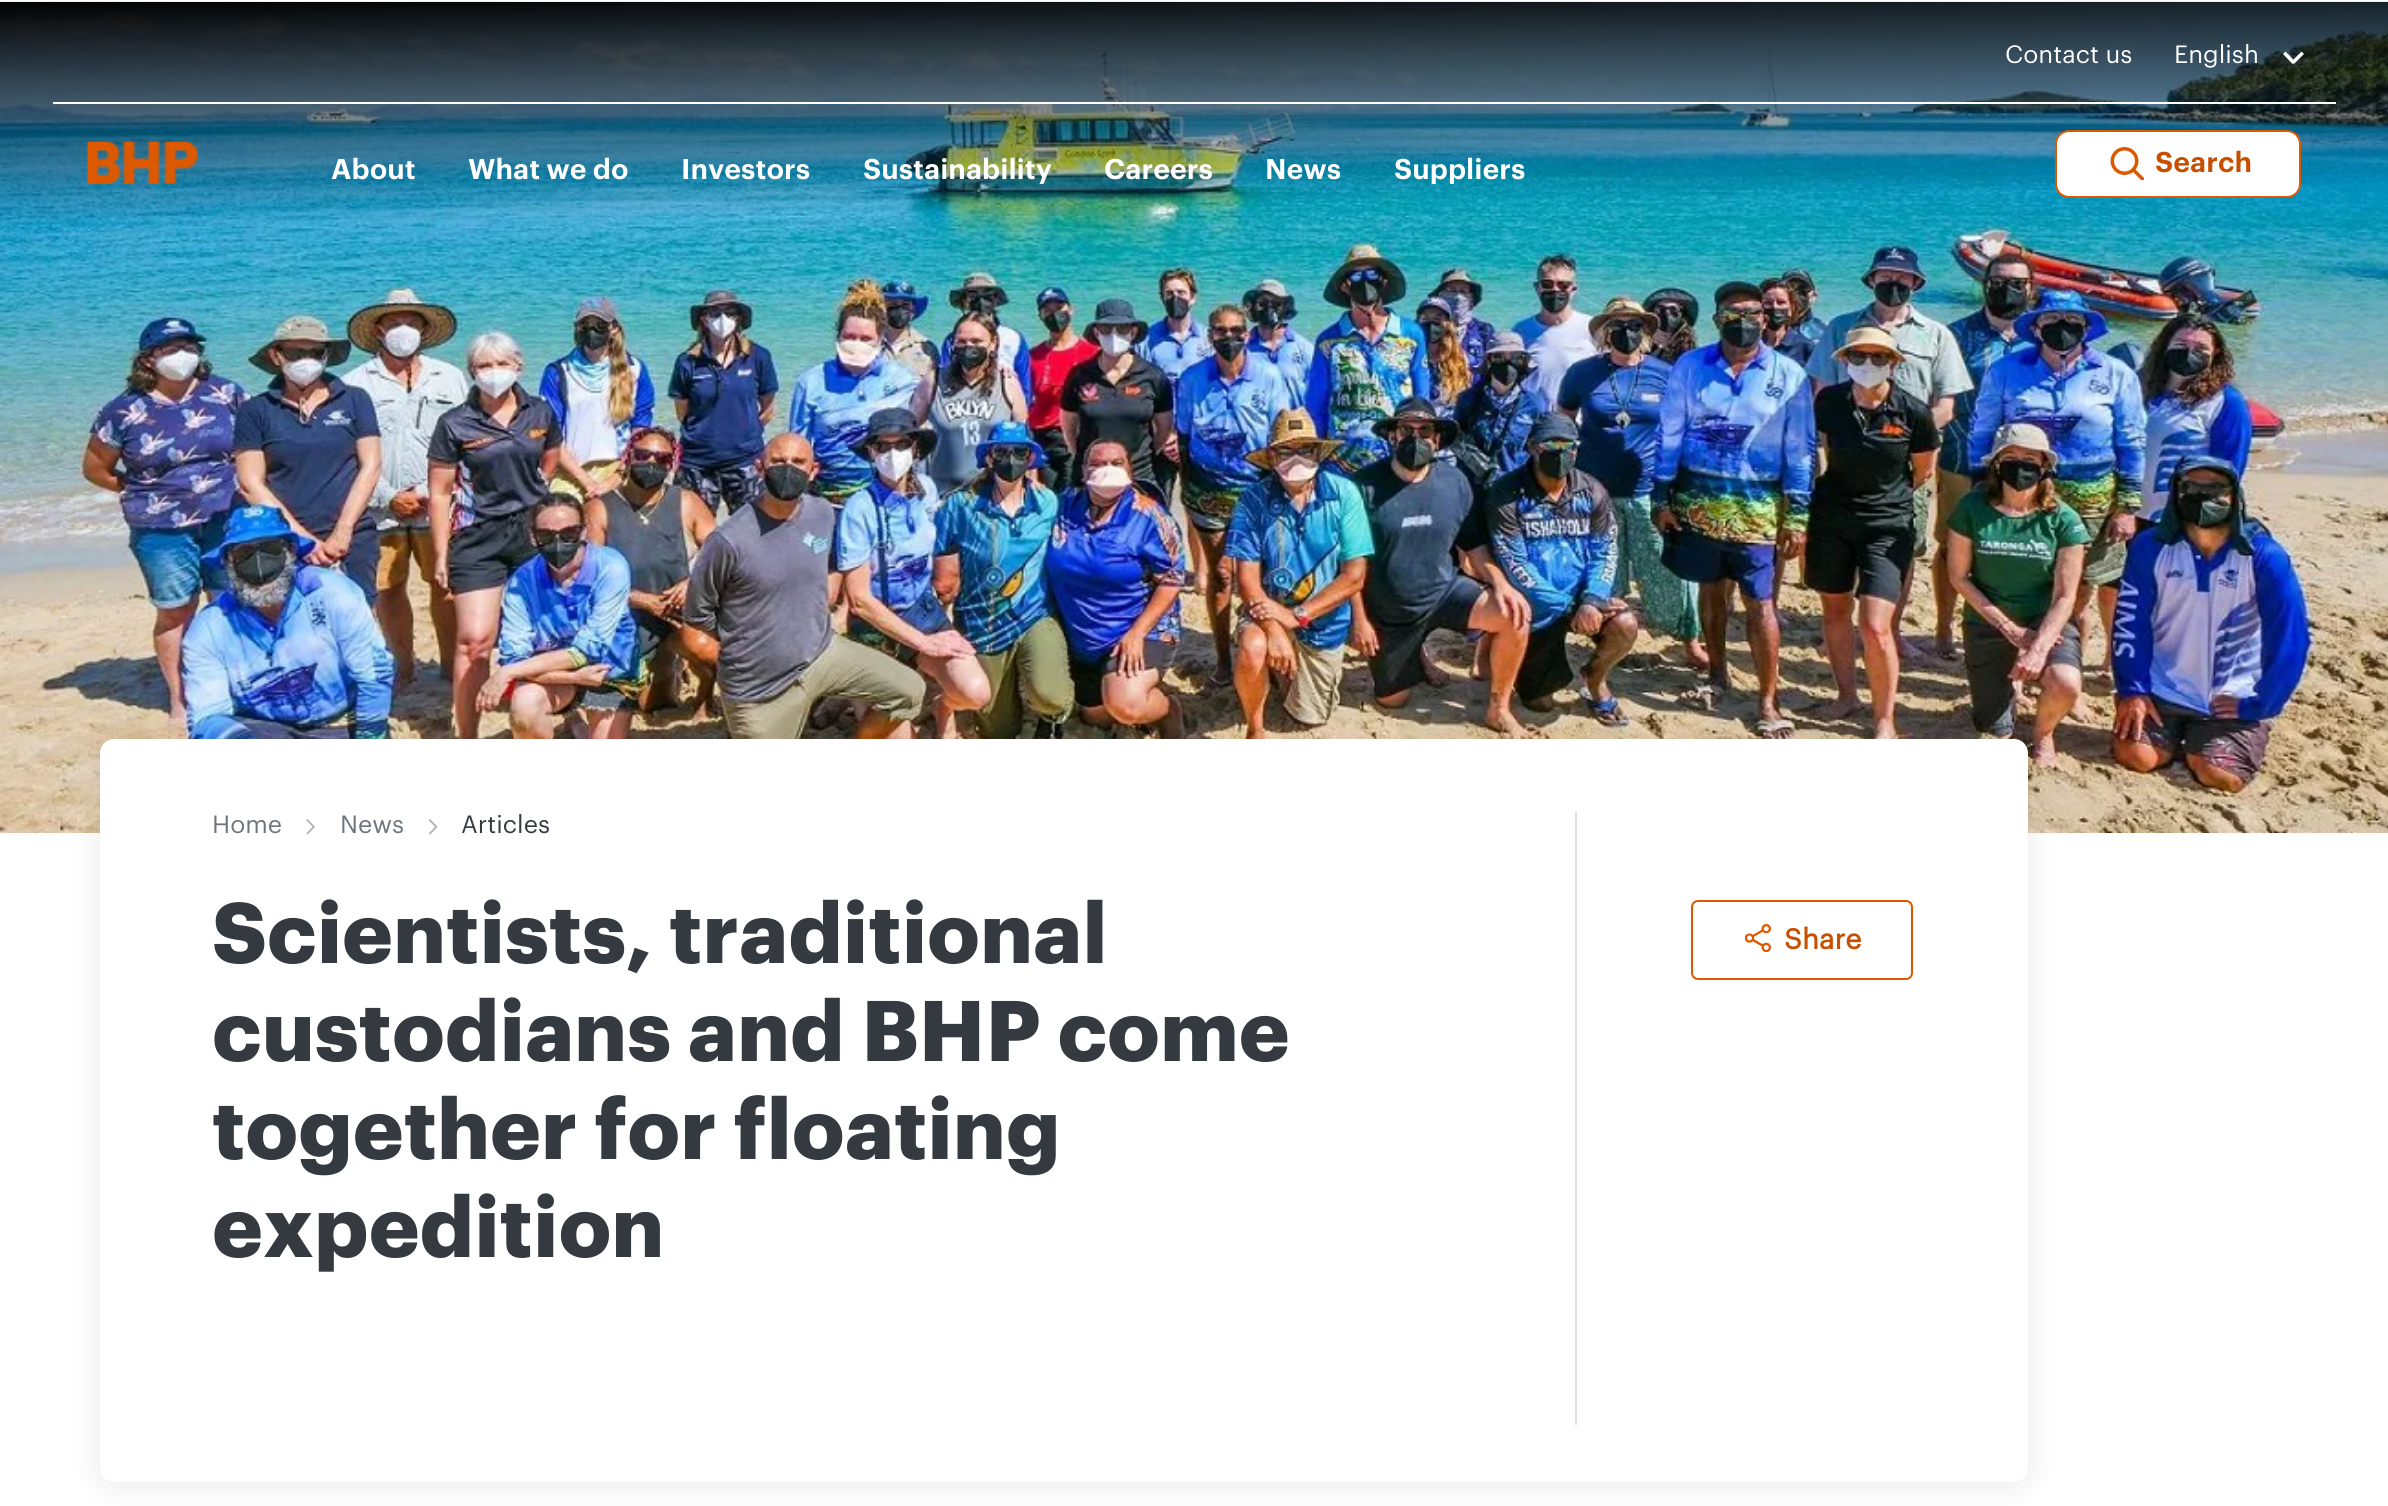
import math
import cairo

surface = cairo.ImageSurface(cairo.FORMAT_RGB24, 2388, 1506)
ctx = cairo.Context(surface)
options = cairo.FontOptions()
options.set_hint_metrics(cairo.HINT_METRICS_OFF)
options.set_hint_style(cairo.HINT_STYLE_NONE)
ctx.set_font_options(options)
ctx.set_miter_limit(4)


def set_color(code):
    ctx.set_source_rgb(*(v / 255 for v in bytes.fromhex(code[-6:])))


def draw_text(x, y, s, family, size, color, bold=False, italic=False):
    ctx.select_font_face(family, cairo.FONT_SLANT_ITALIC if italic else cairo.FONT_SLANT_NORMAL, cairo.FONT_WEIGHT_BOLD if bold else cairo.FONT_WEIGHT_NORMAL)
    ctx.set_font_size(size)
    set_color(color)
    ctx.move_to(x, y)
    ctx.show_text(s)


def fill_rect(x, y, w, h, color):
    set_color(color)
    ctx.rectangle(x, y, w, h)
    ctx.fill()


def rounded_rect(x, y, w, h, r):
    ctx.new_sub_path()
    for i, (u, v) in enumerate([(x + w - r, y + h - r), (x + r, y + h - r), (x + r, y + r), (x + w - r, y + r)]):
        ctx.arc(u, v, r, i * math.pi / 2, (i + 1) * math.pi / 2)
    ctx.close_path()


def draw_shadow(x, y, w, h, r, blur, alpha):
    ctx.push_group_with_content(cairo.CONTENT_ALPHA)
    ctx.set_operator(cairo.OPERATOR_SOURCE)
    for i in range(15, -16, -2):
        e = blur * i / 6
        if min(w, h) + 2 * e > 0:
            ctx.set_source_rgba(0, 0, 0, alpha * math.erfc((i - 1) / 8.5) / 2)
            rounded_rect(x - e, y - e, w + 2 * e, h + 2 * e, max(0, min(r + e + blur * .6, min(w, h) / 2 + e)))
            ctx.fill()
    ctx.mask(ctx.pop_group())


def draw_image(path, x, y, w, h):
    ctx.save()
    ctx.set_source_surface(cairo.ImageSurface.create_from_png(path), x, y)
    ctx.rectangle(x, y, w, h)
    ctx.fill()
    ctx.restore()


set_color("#ffffff")
ctx.paint()
draw_image("assets/img3.png", 0, 1, 2388, 832)
gradient = cairo.LinearGradient(1187, -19, 1202, 854)
gradient.add_color_stop_rgba(0, 0, 0, 0, 1)
gradient.add_color_stop_rgba(0.26, 0, 0, 0, 0)
ctx.set_source(gradient)
ctx.rectangle(0, 2, 2388, 222)
ctx.fill()
draw_text(2005, 63, "Contact us", "Graphik", 24.5, "#ffffff")
draw_text(2174, 63, "English", "Graphik", 24.5, "#ffffff")
ctx.new_path()
ctx.move_to(2283, 54)
ctx.line_to(2285.5, 51.5)
ctx.line_to(2295, 61.5)
ctx.line_to(2292.5, 64)
ctx.close_path()
ctx.fill()
ctx.new_path()
ctx.move_to(2301.5, 51.5)
ctx.line_to(2304, 54)
ctx.line_to(2294, 64)
ctx.line_to(2291.5, 61.5)
ctx.close_path()
ctx.fill()
fill_rect(53, 102, 2283, 2, "#ffffff")
draw_image("assets/img1.png", 87, 141, 111, 43)
draw_text(331, 179, "About", "Graphik SemiBold", 28, "#ffffff")
draw_text(468, 179, "What we do", "Graphik SemiBold", 28, "#ffffff")
draw_text(681, 179, "Investors", "Graphik SemiBold", 28, "#ffffff")
draw_text(863, 179, "Sustainability", "Graphik SemiBold", 28, "#ffffff")
draw_text(1104, 179, "Careers", "Graphik SemiBold", 28, "#ffffff")
draw_text(1265, 179, "News", "Graphik SemiBold", 28, "#ffffff")
draw_text(1394, 179, "Suppliers", "Graphik SemiBold", 28, "#ffffff")
rounded_rect(2056, 131, 244, 66, 13)
ctx.fill_preserve()
set_color("#dd5900")
ctx.stroke()
draw_image("assets/img2.png", 2110, 147, 34, 33)
draw_text(2155, 172, "Search", "Graphik SemiBold", 28, "#c75000")
set_color("#000000")
draw_shadow(100, 742, 1928, 744, 14, 17.5, 0.08)
set_color("#ffffff")
rounded_rect(100, 739, 1928, 743, 14)
ctx.fill()
draw_text(212, 833, "Home", "Graphik", 24.5, "#6c757d")
draw_image("assets/img4.png", 306, 819, 9, 16)
draw_text(340, 833, "News", "Graphik", 24.5, "#6c757d")
draw_image("assets/img5.png", 429, 819, 9, 16)
draw_text(461, 833, "Articles", "Graphik", 24.5, "#343a40")
draw_text(212, 963, "Scientists, traditional", "Graphik", 84, "#343a40", bold=True)
draw_text(212, 1061, "custodians and BHP come", "Graphik", 84, "#343a40", bold=True)
draw_text(212, 1159, "together for floating", "Graphik", 84, "#343a40", bold=True)
draw_text(212, 1257, "expedition", "Graphik", 84, "#343a40", bold=True)
fill_rect(1575, 812, 2, 613, "#dee2e6")
rounded_rect(1692, 901, 220, 78, 6)
set_color("#dd5900")
ctx.stroke()
draw_image("assets/img6.png", 1745, 924, 26, 28)
draw_text(1784, 949, "Share", "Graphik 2", 28, "#c75000", bold=True)
surface.write_to_png("output.png")
